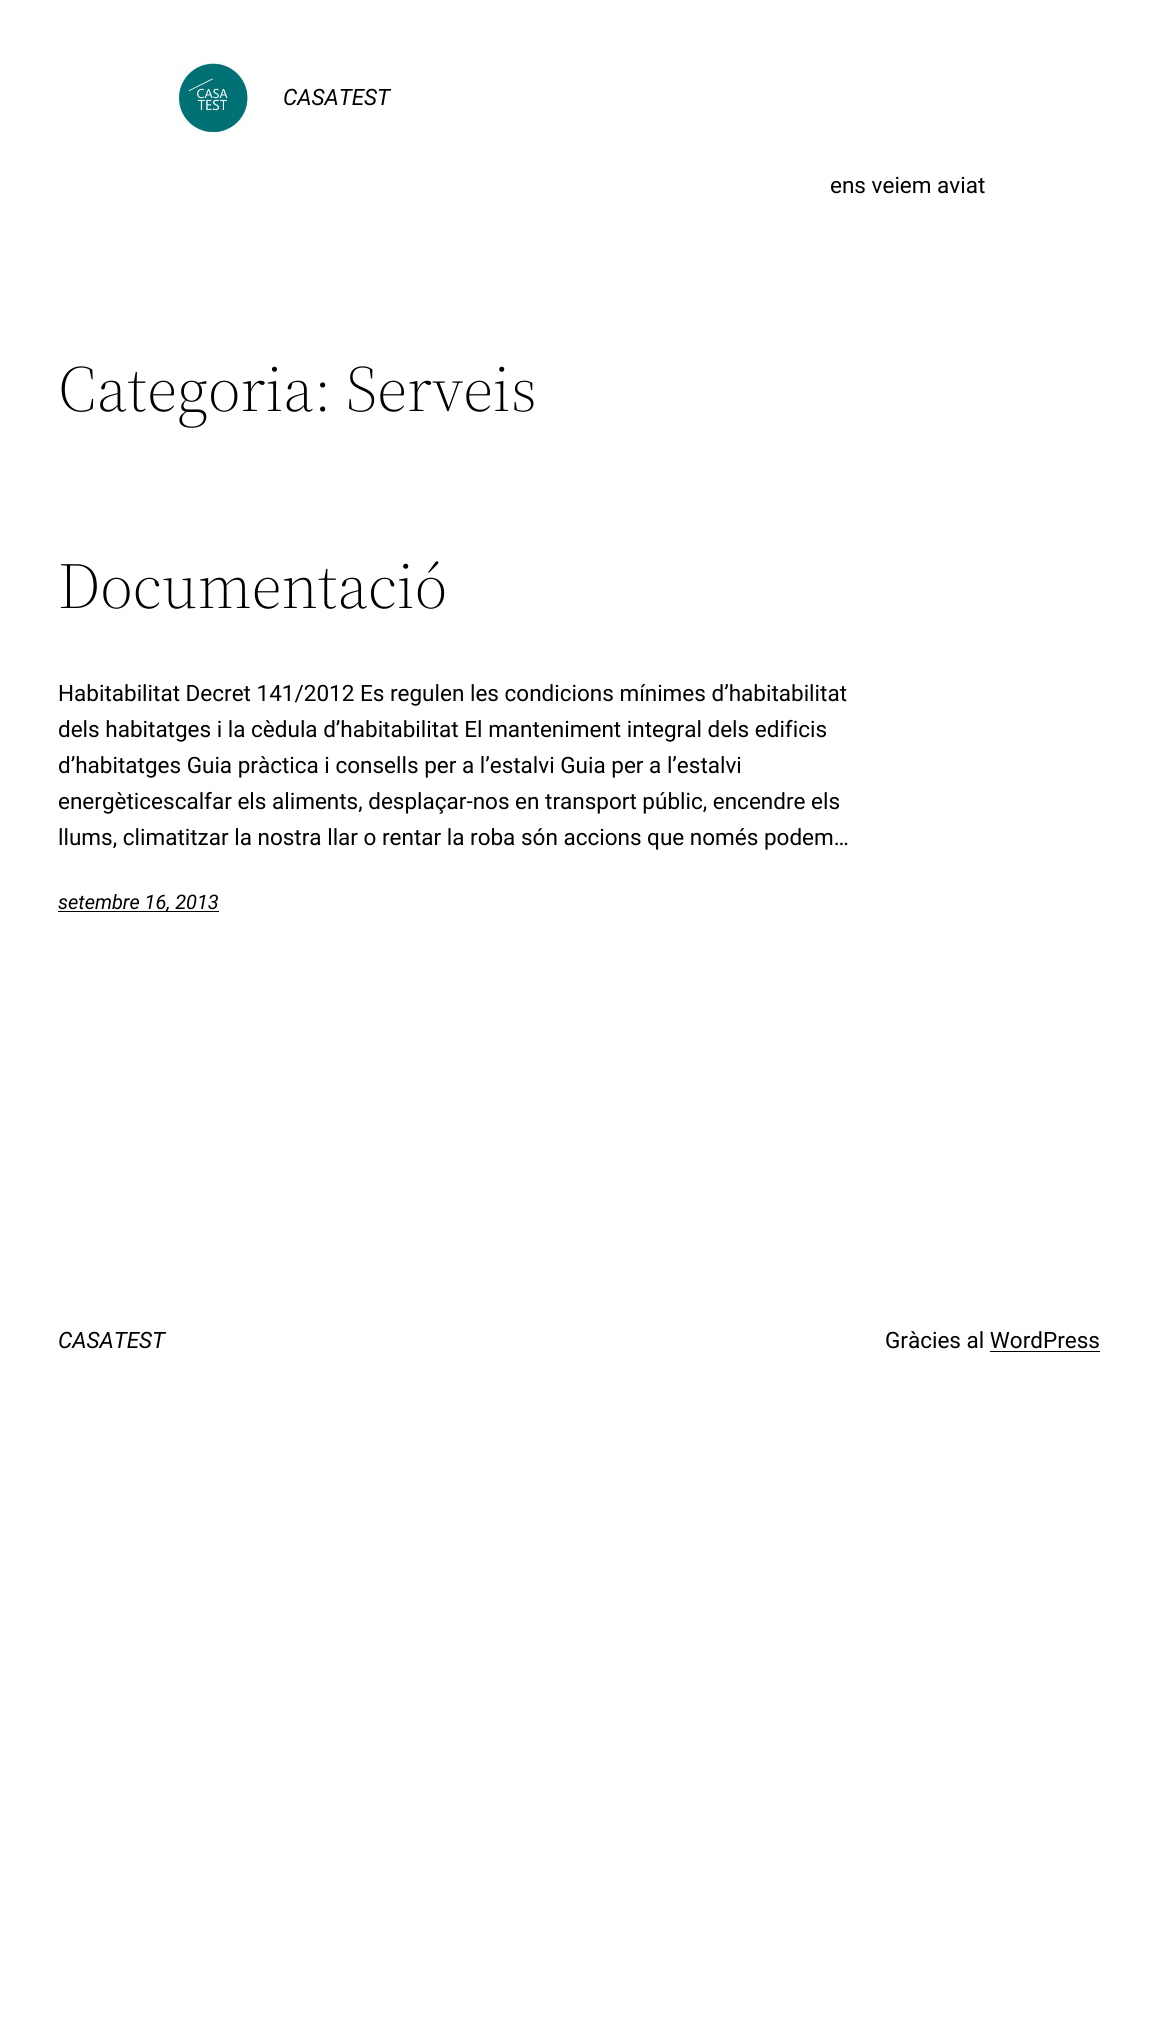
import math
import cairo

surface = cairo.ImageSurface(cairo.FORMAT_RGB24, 1157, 2038)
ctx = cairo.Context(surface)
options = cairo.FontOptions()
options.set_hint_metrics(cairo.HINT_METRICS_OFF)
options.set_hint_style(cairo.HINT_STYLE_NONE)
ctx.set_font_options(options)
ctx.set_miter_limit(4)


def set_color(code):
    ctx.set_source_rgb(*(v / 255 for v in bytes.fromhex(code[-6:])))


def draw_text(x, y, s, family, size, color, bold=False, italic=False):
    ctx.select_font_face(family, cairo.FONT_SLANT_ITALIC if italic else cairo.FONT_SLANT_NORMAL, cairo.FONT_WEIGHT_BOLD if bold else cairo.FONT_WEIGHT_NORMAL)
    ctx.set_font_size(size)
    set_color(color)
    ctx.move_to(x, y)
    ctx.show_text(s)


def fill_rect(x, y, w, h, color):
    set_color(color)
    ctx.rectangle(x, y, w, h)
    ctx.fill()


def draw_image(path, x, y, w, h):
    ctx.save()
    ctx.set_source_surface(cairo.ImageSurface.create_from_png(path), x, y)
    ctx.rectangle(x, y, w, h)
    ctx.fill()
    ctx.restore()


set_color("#ffffff")
ctx.paint()
draw_image("assets/img1.png", 174, 61, 75, 73)
draw_text(283, 105, "CASATEST", "Roboto", 22.5, "#000000", italic=True)
draw_text(830, 193, "ens veiem aviat", "Roboto", 22.5, "#000000")
draw_text(58, 411, "Categoria: Serveis", "Source Serif 4 Light", 65, "#000000")
draw_text(58, 608, "Documentació", "Source Serif 4 Light", 65, "#000000")
draw_text(58, 701, "Habitabilitat Decret 141/2012 Es regulen les condicions mínimes d’habitabilitat", "Roboto", 22.5, "#000000")
draw_text(58, 737, "dels habitatges i la cèdula d’habitabilitat El manteniment integral dels edificis", "Roboto", 22.5, "#000000")
draw_text(58, 773, "d’habitatges Guia pràctica i consells per a l’estalvi Guia per a l’estalvi", "Roboto", 22.5, "#000000")
draw_text(58, 809, "energèticescalfar els aliments, desplaçar-nos en transport públic, encendre els", "Roboto", 22.5, "#000000")
draw_text(58, 845, "llums, climatitzar la nostra llar o rentar la roba són accions que només podem…", "Roboto", 22.5, "#000000")
fill_rect(58, 911, 161, 1, "#000000")
draw_text(58, 909, "setembre 16, 2013", "Roboto", 20, "#000000", italic=True)
draw_text(58, 1348, "CASATEST", "Roboto", 22.5, "#000000", italic=True)
draw_text(885, 1348, "Gràcies al WordPress", "Roboto", 22.5, "#000000")
fill_rect(990, 1351, 110, 1, "#000000")
surface.write_to_png("output.png")
